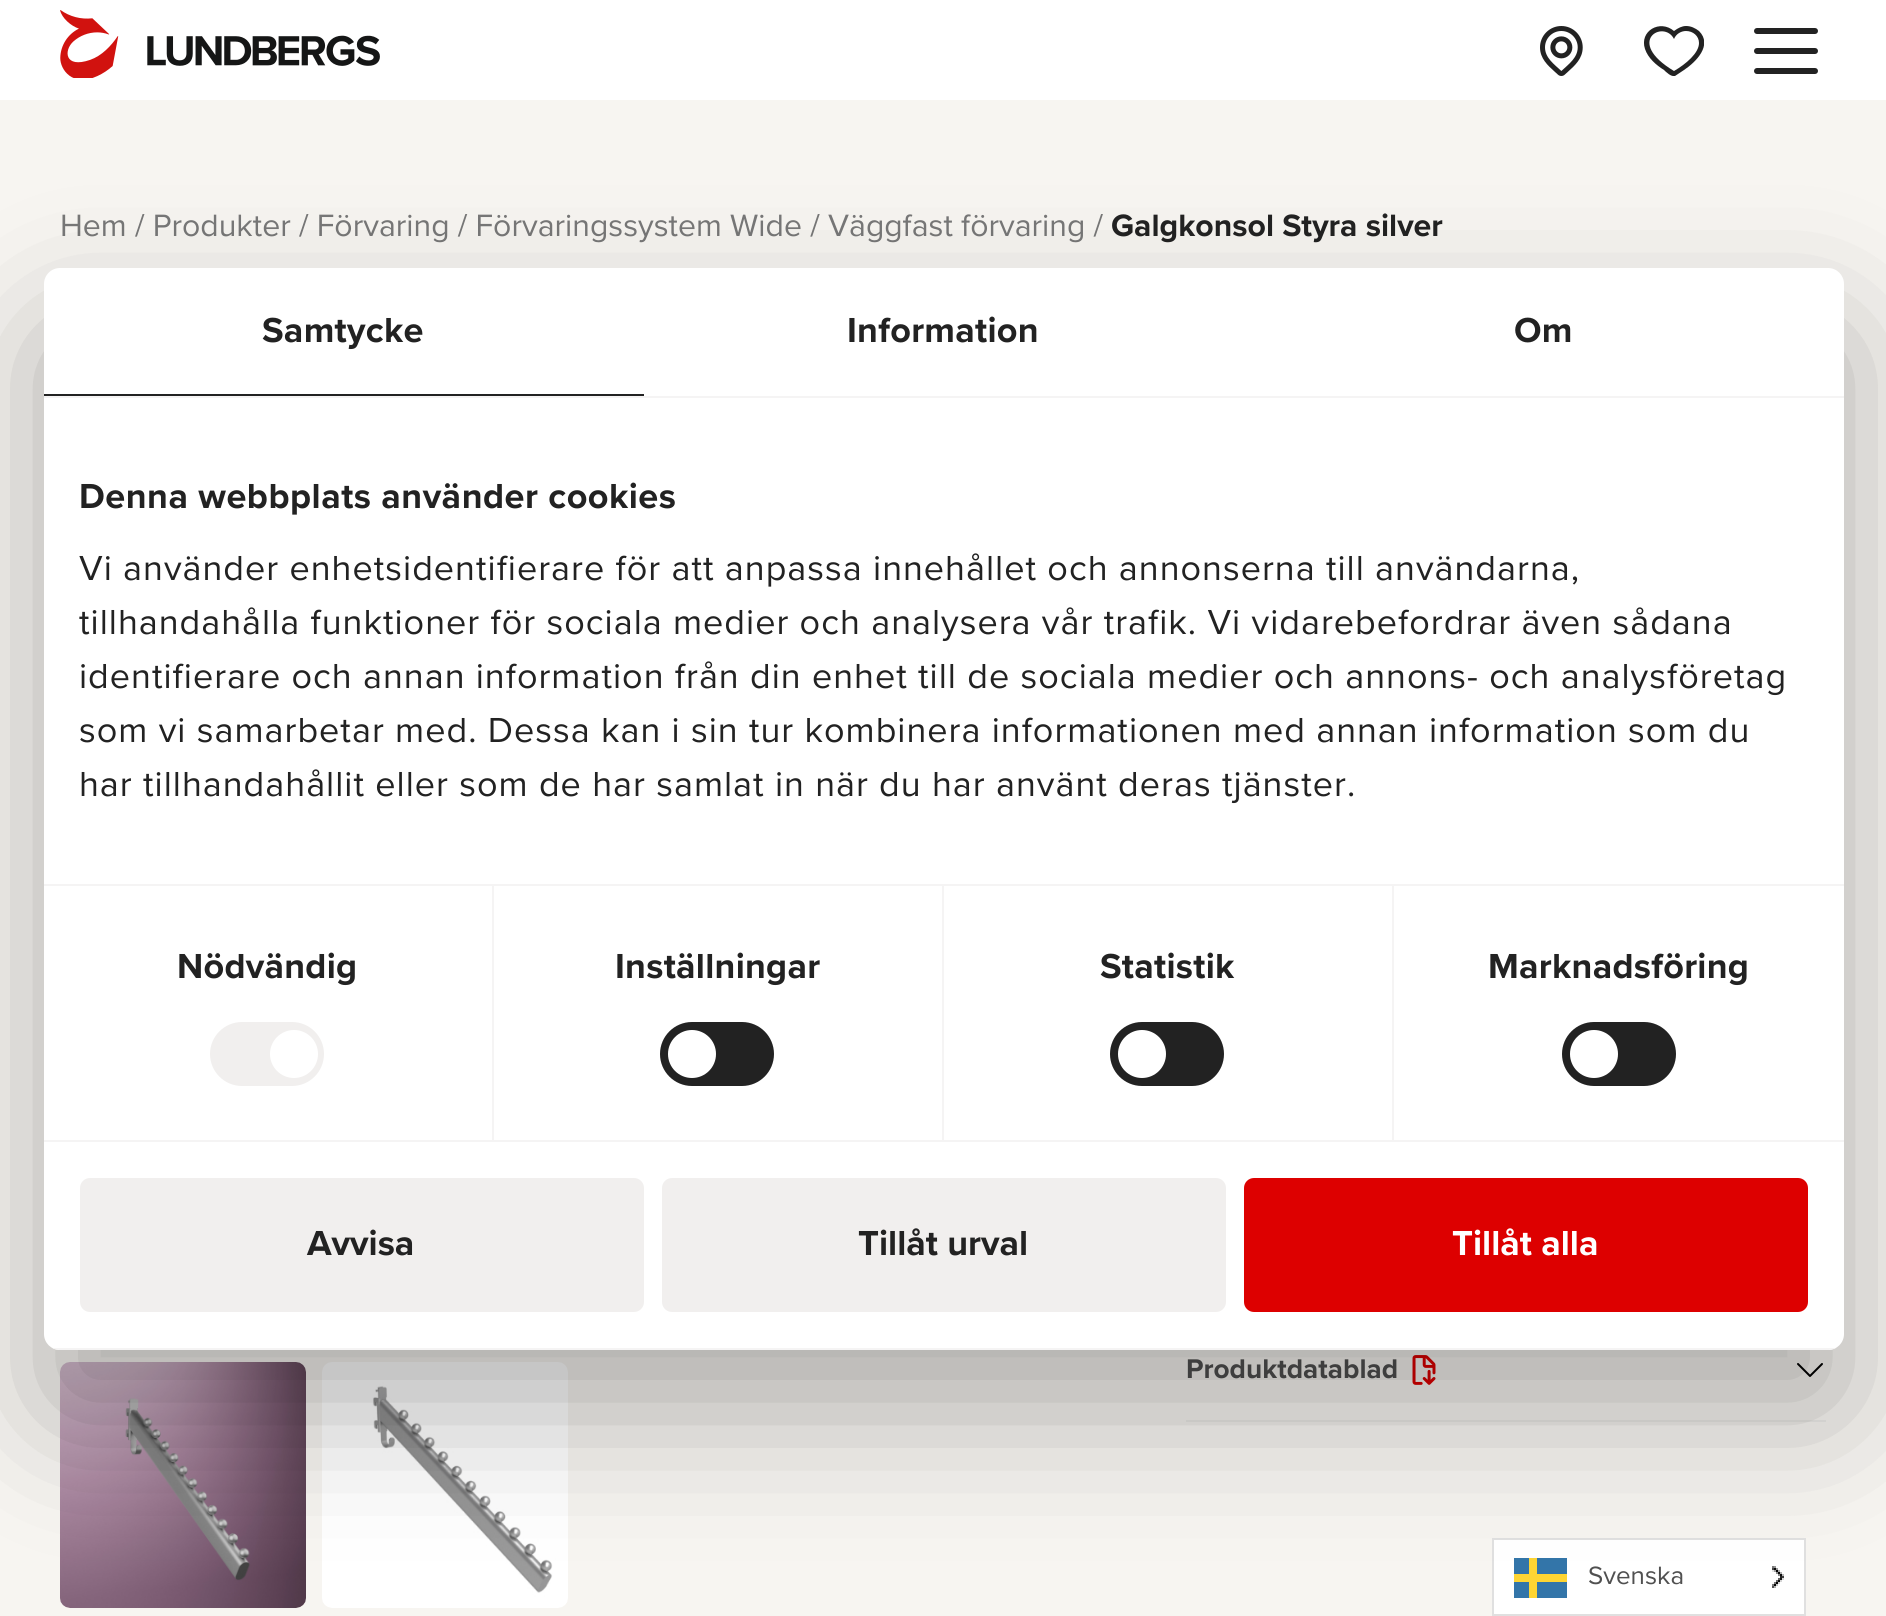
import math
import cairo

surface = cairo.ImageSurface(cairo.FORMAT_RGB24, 1886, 1616)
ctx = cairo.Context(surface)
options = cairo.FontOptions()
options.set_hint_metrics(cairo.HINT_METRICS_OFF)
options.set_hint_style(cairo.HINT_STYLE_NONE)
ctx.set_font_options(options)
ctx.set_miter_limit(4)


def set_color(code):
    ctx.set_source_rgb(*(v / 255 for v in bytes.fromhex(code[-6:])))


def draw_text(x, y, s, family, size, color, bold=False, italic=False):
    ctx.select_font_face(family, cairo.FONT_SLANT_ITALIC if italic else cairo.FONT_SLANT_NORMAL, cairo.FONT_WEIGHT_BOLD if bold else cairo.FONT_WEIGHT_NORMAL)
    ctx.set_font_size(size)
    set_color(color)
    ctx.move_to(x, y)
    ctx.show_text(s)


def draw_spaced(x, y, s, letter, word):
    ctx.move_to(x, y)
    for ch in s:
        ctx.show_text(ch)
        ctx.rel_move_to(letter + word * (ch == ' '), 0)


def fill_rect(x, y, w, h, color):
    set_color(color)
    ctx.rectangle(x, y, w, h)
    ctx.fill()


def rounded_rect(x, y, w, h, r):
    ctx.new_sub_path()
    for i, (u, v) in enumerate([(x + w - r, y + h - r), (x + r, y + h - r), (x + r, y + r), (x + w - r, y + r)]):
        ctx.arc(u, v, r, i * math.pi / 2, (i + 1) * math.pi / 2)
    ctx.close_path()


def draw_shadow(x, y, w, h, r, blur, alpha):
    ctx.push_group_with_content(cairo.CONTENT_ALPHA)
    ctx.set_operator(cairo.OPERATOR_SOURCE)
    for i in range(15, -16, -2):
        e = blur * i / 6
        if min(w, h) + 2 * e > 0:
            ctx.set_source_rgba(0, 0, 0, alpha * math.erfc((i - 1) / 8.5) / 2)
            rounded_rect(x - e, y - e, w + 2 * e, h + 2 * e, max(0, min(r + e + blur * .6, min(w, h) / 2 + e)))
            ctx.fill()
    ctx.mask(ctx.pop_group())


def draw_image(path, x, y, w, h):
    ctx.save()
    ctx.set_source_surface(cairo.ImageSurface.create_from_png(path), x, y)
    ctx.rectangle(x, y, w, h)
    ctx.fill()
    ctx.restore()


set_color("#f7f5f1")
ctx.paint()
fill_rect(0, 0, 1886, 100, "#ffffff")
draw_image("assets/img1.png", 60, 10, 320, 68)
draw_image("assets/img2.png", 1540, 26, 43, 50)
ctx.save()
ctx.rectangle(1644, 26, 60, 50)
ctx.clip()
set_color("#222222")
ctx.new_path()
ctx.move_to(1686, 31)
ctx.curve_to(1693, 31, 1699, 36, 1699, 43)
ctx.curve_to(1699, 53, 1686, 64, 1674, 71)
ctx.curve_to(1624, 41, 1664, 19, 1674, 39)
ctx.curve_to(1676, 34, 1681, 31, 1686, 31)
ctx.move_to(1686, 26)
ctx.curve_to(1682, 26, 1678, 28, 1674, 31)
ctx.curve_to(1660, 19, 1639, 31, 1645, 49)
ctx.curve_to(1648, 58, 1656, 65, 1664, 70)
ctx.curve_to(1666, 72, 1671, 77, 1675, 76)
ctx.line_to(1684, 70)
ctx.curve_to(1696, 62, 1713, 45, 1699, 31)
ctx.curve_to(1695, 28, 1691, 26, 1686, 26)
ctx.fill()
ctx.restore()
set_color("#222222")
rounded_rect(1754, 28, 64, 6, 3)
ctx.fill()
rounded_rect(1754, 48, 64, 6, 3)
ctx.fill()
rounded_rect(1754, 68, 64, 6, 3)
ctx.fill()
draw_text(60, 236, "Hem / Produkter / Förvaring / Förvaringssystem Wide / Väggfast förvaring /", "Proxima Nova", 32, "#777777")
draw_text(1111, 236, "Galgkonsol Styra silver", "Proxima Nova", 32, "#222222", bold=True)
draw_image("assets/img3.png", 60, 1362, 246, 246)
draw_image("assets/img4.png", 322, 1362, 246, 246)
fill_rect(1186, 1420, 640, 2, "#ecebe8")
draw_text(1186, 1378, "Produktdatablad", "Proxima Nova", 28, "#505050", bold=True)
draw_image("assets/img5.png", 1412, 1355, 24, 30)
draw_image("assets/img6.png", 1797, 1363, 26, 14)
set_color("#ffffff")
ctx.rectangle(1493, 1539, 312, 76)
ctx.fill_preserve()
set_color("#e0e0e0")
ctx.stroke()
fill_rect(1514, 1558, 53, 40, "#3375a9")
set_color("#fed533")
ctx.new_path()
ctx.move_to(1529, 1558)
ctx.line_to(1529, 1574)
ctx.line_to(1514, 1574)
ctx.line_to(1514, 1582)
ctx.line_to(1529, 1582)
ctx.line_to(1529, 1598)
ctx.line_to(1537, 1598)
ctx.line_to(1537, 1582)
ctx.line_to(1567, 1582)
ctx.line_to(1567, 1574)
ctx.line_to(1537, 1574)
ctx.line_to(1537, 1558)
ctx.close_path()
ctx.fill()
draw_image("assets/img7.png", 1772, 1566, 12, 22)
set_color("#000000")
draw_shadow(44, 332, 1800, 1082, 16, 68, 0.3)
set_color("#ffffff")
rounded_rect(44, 268, 1800, 1082, 16)
ctx.fill()
fill_rect(44, 396, 1800, 2, "#f5f4f4")
fill_rect(44, 394, 600, 2, "#222222")
ctx.set_font_size(36)
draw_spaced(262, 342, "Samtycke", 0.25, 0)
draw_spaced(847, 342, "Information", 0.25, 0)
draw_spaced(1514, 342, "Om", 0.25, 0)
fill_rect(44, 884, 1800, 2, "#f5f4f4")
set_color("#222222")
draw_spaced(79, 508, "Denna webbplats använder cookies", 0.5, 0)
ctx.select_font_face("Proxima Nova")
draw_spaced(79, 580, "Vi använder enhetsidentifierare för att anpassa innehållet och annonserna till användarna,", 1, 0)
draw_spaced(79, 634, "tillhandahålla funktioner för sociala medier och analysera vår trafik. Vi vidarebefordrar även sådana", 1, 0)
draw_spaced(79, 688, "identifierare och annan information från din enhet till de sociala medier och annons- och analysföretag", 1, 0)
draw_spaced(79, 742, "som vi samarbetar med. Dessa kan i sin tur kombinera informationen med annan information som du", 1, 0)
draw_spaced(79, 796, "har tillhandahållit eller som de har samlat in när du har använt deras tjänster.", 1, 0)
fill_rect(44, 1140, 1800, 2, "#f5f4f4")
fill_rect(492, 886, 2, 254, "#f5f4f4")
ctx.select_font_face("Proxima Nova", cairo.FONT_SLANT_NORMAL, cairo.FONT_WEIGHT_BOLD)
set_color("#222222")
draw_spaced(177, 978, "Nödvändig", 0.25, 0)
set_color("#f1efee")
rounded_rect(210, 1022, 114, 64, 32)
ctx.fill()
set_color("#ffffff")
ctx.arc(294, 1054, 24, 0, 2 * math.pi)
ctx.fill()
fill_rect(942, 886, 2, 254, "#f5f4f4")
set_color("#222222")
draw_spaced(615, 978, "Inställningar", 0.25, 0)
rounded_rect(660, 1022, 114, 64, 32)
ctx.fill()
set_color("#ffffff")
ctx.arc(692, 1054, 24, 0, 2 * math.pi)
ctx.fill()
fill_rect(1392, 886, 2, 254, "#f5f4f4")
set_color("#222222")
draw_spaced(1100, 978, "Statistik", 0.25, 0)
rounded_rect(1110, 1022, 114, 64, 32)
ctx.fill()
set_color("#ffffff")
ctx.arc(1142, 1054, 24, 0, 2 * math.pi)
ctx.fill()
set_color("#222222")
draw_spaced(1488, 978, "Marknadsföring", 0.25, 0)
rounded_rect(1562, 1022, 114, 64, 32)
ctx.fill()
set_color("#ffffff")
ctx.arc(1594, 1054, 24, 0, 2 * math.pi)
ctx.fill()
ctx.save()
rounded_rect(44, 268, 1800, 1082, 16)
ctx.clip()
fill_rect(44, 1348, 1800, 2, "#f5f4f4")
ctx.restore()
set_color("#f1efee")
rounded_rect(82, 1180, 560, 130, 8)
ctx.fill_preserve()
ctx.set_line_width(4)
ctx.stroke()
draw_text(307, 1255, "Avvisa", "Proxima Nova", 36, "#222222", bold=True)
set_color("#f1efee")
rounded_rect(664, 1180, 560, 130, 8)
ctx.fill_preserve()
ctx.stroke()
draw_text(858, 1255, "Tillåt urval", "Proxima Nova", 36, "#222222", bold=True)
set_color("#dd0000")
rounded_rect(1246, 1180, 560, 130, 8)
ctx.fill_preserve()
ctx.stroke()
draw_text(1452, 1255, "Tillåt alla", "Proxima Nova", 36, "#ffffff", bold=True)
draw_text(1588, 1584, "Svenska", "Proxima Nova", 26, "#505050")
surface.write_to_png("output.png")
